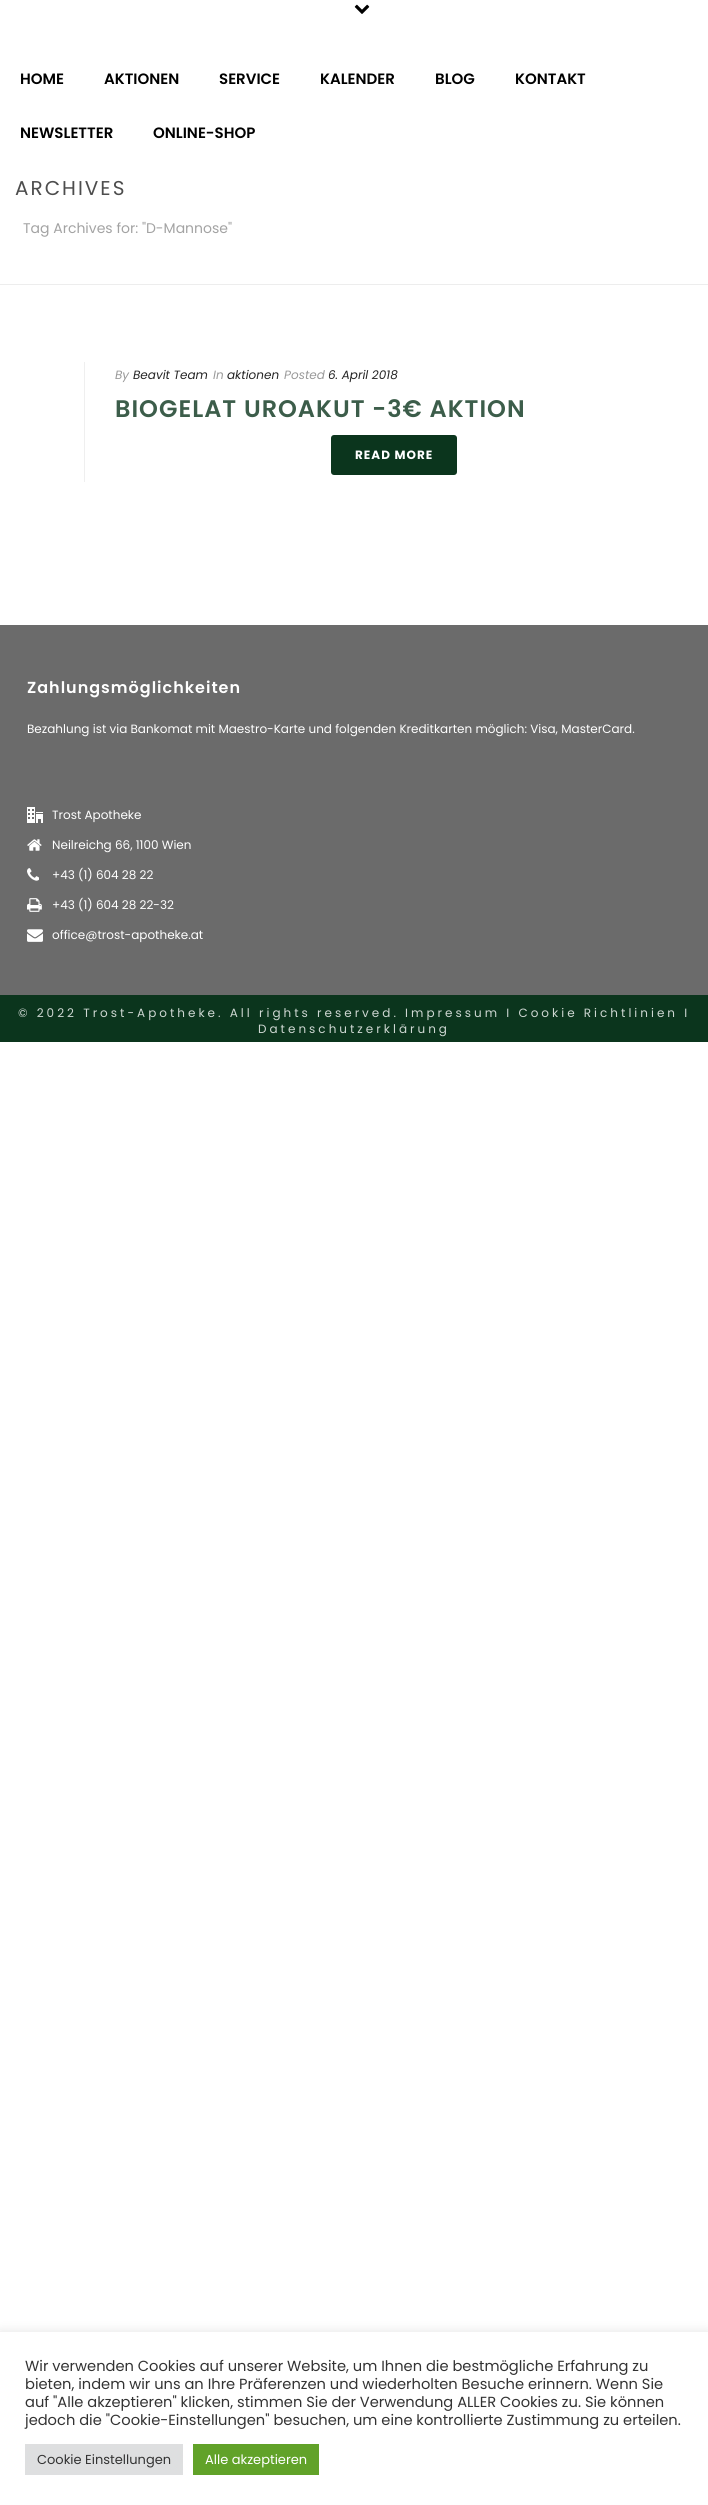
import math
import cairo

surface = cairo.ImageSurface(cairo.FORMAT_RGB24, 708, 2505)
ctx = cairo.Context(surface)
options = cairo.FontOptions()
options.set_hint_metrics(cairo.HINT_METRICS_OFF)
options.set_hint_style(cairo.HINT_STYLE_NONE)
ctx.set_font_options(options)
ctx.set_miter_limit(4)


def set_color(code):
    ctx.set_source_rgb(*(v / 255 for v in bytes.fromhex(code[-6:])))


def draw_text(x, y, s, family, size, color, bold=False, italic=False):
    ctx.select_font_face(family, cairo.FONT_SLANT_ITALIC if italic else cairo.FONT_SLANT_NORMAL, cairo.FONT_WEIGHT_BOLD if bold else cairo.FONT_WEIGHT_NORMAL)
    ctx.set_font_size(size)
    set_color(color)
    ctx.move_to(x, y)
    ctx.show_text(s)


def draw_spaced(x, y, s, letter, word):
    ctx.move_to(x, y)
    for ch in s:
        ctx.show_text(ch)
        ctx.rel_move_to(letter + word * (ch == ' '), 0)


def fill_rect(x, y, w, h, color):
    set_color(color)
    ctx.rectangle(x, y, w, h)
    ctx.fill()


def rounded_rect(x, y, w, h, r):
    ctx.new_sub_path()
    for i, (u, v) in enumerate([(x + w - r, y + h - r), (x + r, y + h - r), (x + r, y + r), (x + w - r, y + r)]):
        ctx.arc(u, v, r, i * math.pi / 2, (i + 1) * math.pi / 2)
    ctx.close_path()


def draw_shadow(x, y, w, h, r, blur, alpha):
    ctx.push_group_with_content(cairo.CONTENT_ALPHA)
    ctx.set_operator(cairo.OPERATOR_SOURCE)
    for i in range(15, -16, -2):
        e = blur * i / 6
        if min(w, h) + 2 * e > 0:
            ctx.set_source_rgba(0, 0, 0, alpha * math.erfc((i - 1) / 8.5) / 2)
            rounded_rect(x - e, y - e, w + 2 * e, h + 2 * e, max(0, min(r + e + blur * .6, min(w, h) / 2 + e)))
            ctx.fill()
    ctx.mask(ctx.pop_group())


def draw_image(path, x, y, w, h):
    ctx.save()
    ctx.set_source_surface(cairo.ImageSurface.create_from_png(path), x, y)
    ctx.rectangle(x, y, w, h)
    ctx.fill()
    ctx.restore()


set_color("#ffffff")
ctx.paint()
fill_rect(0, 284, 708, 1, "#ededed")
draw_image("assets/img1.png", 354, 4, 16, 10)
draw_text(20, 84, "HOME", "Poppins SemiBold", 15, "#000000")
draw_text(104, 84, "AKTIONEN", "Poppins SemiBold", 15, "#000000")
draw_text(219, 84, "SERVICE", "Poppins SemiBold", 15, "#000000")
draw_text(320, 84, "KALENDER", "Poppins SemiBold", 15, "#000000")
draw_text(435, 84, "BLOG", "Poppins SemiBold", 15, "#000000")
draw_text(515, 84, "KONTAKT", "Poppins SemiBold", 15, "#000000")
draw_text(20, 138, "NEWSLETTER", "Poppins SemiBold", 15, "#000000")
draw_text(153, 138, "ONLINE-SHOP", "Poppins SemiBold", 15, "#000000")
ctx.select_font_face("Poppins")
ctx.set_font_size(20)
set_color("#4d4d4d")
draw_spaced(15, 195, "ARCHIVES", 2, 0)
draw_text(23, 233, "Tag Archives for: \"D-Mannose\"", "Poppins", 14, "#a3a3a3")
fill_rect(84, 362, 1, 120, "#efefef")
draw_text(115, 379, "By", "Poppins", 12, "#999999", italic=True)
draw_text(133, 379, "Beavit Team", "Poppins", 12, "#252525", italic=True)
draw_text(213, 379, "In", "Poppins", 12, "#999999", italic=True)
draw_text(227, 379, "aktionen", "Poppins", 12, "#252525", italic=True)
draw_text(284, 379, "Posted", "Poppins", 12, "#999999", italic=True)
draw_text(328, 379, "6. April 2018", "Poppins", 12, "#252525", italic=True)
ctx.select_font_face("Poppins SemiBold")
ctx.set_font_size(24)
set_color("#3c5d4a")
draw_spaced(115, 417, "BIOGELAT UROAKUT -3€ AKTION", 1, 0)
set_color("#0b351d")
rounded_rect(331, 435, 126, 40, 3)
ctx.fill()
ctx.select_font_face("Poppins", cairo.FONT_SLANT_NORMAL, cairo.FONT_WEIGHT_BOLD)
ctx.set_font_size(12)
set_color("#ffffff")
draw_spaced(355, 459, "READ MORE", 1, 0)
fill_rect(0, 625, 708, 370, "#6b6b6b")
ctx.select_font_face("Poppins SemiBold")
ctx.set_font_size(16)
set_color("#ffffff")
draw_spaced(27, 693, "Zahlungsmöglichkeiten", 1, 0)
draw_text(27, 733, "Bezahlung ist via Bankomat mit Maestro-Karte und folgenden Kreditkarten möglich: Visa, MasterCard.", "Poppins", 12, "#ffffff")
draw_image("assets/img2.png", 27, 807, 16, 16)
draw_text(52, 819, "Trost Apotheke", "Poppins", 12, "#ffffff")
draw_image("assets/img3.png", 27, 839, 15, 12)
draw_text(52, 849, "Neilreichg 66, 1100 Wien", "Poppins", 12, "#ffffff")
draw_image("assets/img4.png", 27, 868, 12, 13)
draw_text(52, 879, "+43 (1) 604 28 22", "Poppins", 12, "#ffffff")
draw_image("assets/img5.png", 27, 898, 15, 14)
draw_text(52, 909, "+43 (1) 604 28 22-32", "Poppins", 12, "#ffffff")
draw_image("assets/img6.png", 27, 929, 16, 13)
draw_text(52, 939, "office@trost-apotheke.at", "Poppins", 12, "#ffffff")
fill_rect(0, 995, 708, 47, "#0b351d")
set_color("#ced7d2")
draw_spaced(18, 1017, "© 2022 Trost-Apotheke. All rights reserved. Impressum I Cookie Richtlinien I", 3, 0)
draw_spaced(258, 1033, "Datenschutzerklärung", 3, 0)
set_color("#acabab")
draw_shadow(0, 2331, 708, 173, 0, 5, 0.3)
fill_rect(0, 2332, 708, 173, "#ffffff")
draw_text(25, 2371, "Wir verwenden Cookies auf unserer Website, um Ihnen die bestmögliche Erfahrung zu", "Poppins", 14.65, "#333333")
draw_text(25, 2389, "bieten, indem wir uns an Ihre Präferenzen und wiederholten Besuche erinnern. Wenn Sie", "Poppins", 14.65, "#333333")
draw_text(25, 2407, "auf \"Alle akzeptieren\" klicken, stimmen Sie der Verwendung ALLER Cookies zu. Sie können", "Poppins", 14.65, "#333333")
draw_text(25, 2425, "jedoch die \"Cookie-Einstellungen\" besuchen, um eine kontrollierte Zustimmung zu erteilen.", "Poppins", 14.65, "#333333")
fill_rect(25, 2444, 158, 31, "#dedfe0")
draw_text(37, 2464, "Cookie Einstellungen", "Poppins", 13, "#333333")
fill_rect(193, 2444, 126, 31, "#61a229")
draw_text(205, 2464, "Alle akzeptieren", "Poppins", 13, "#ffffff")
surface.write_to_png("output.png")
